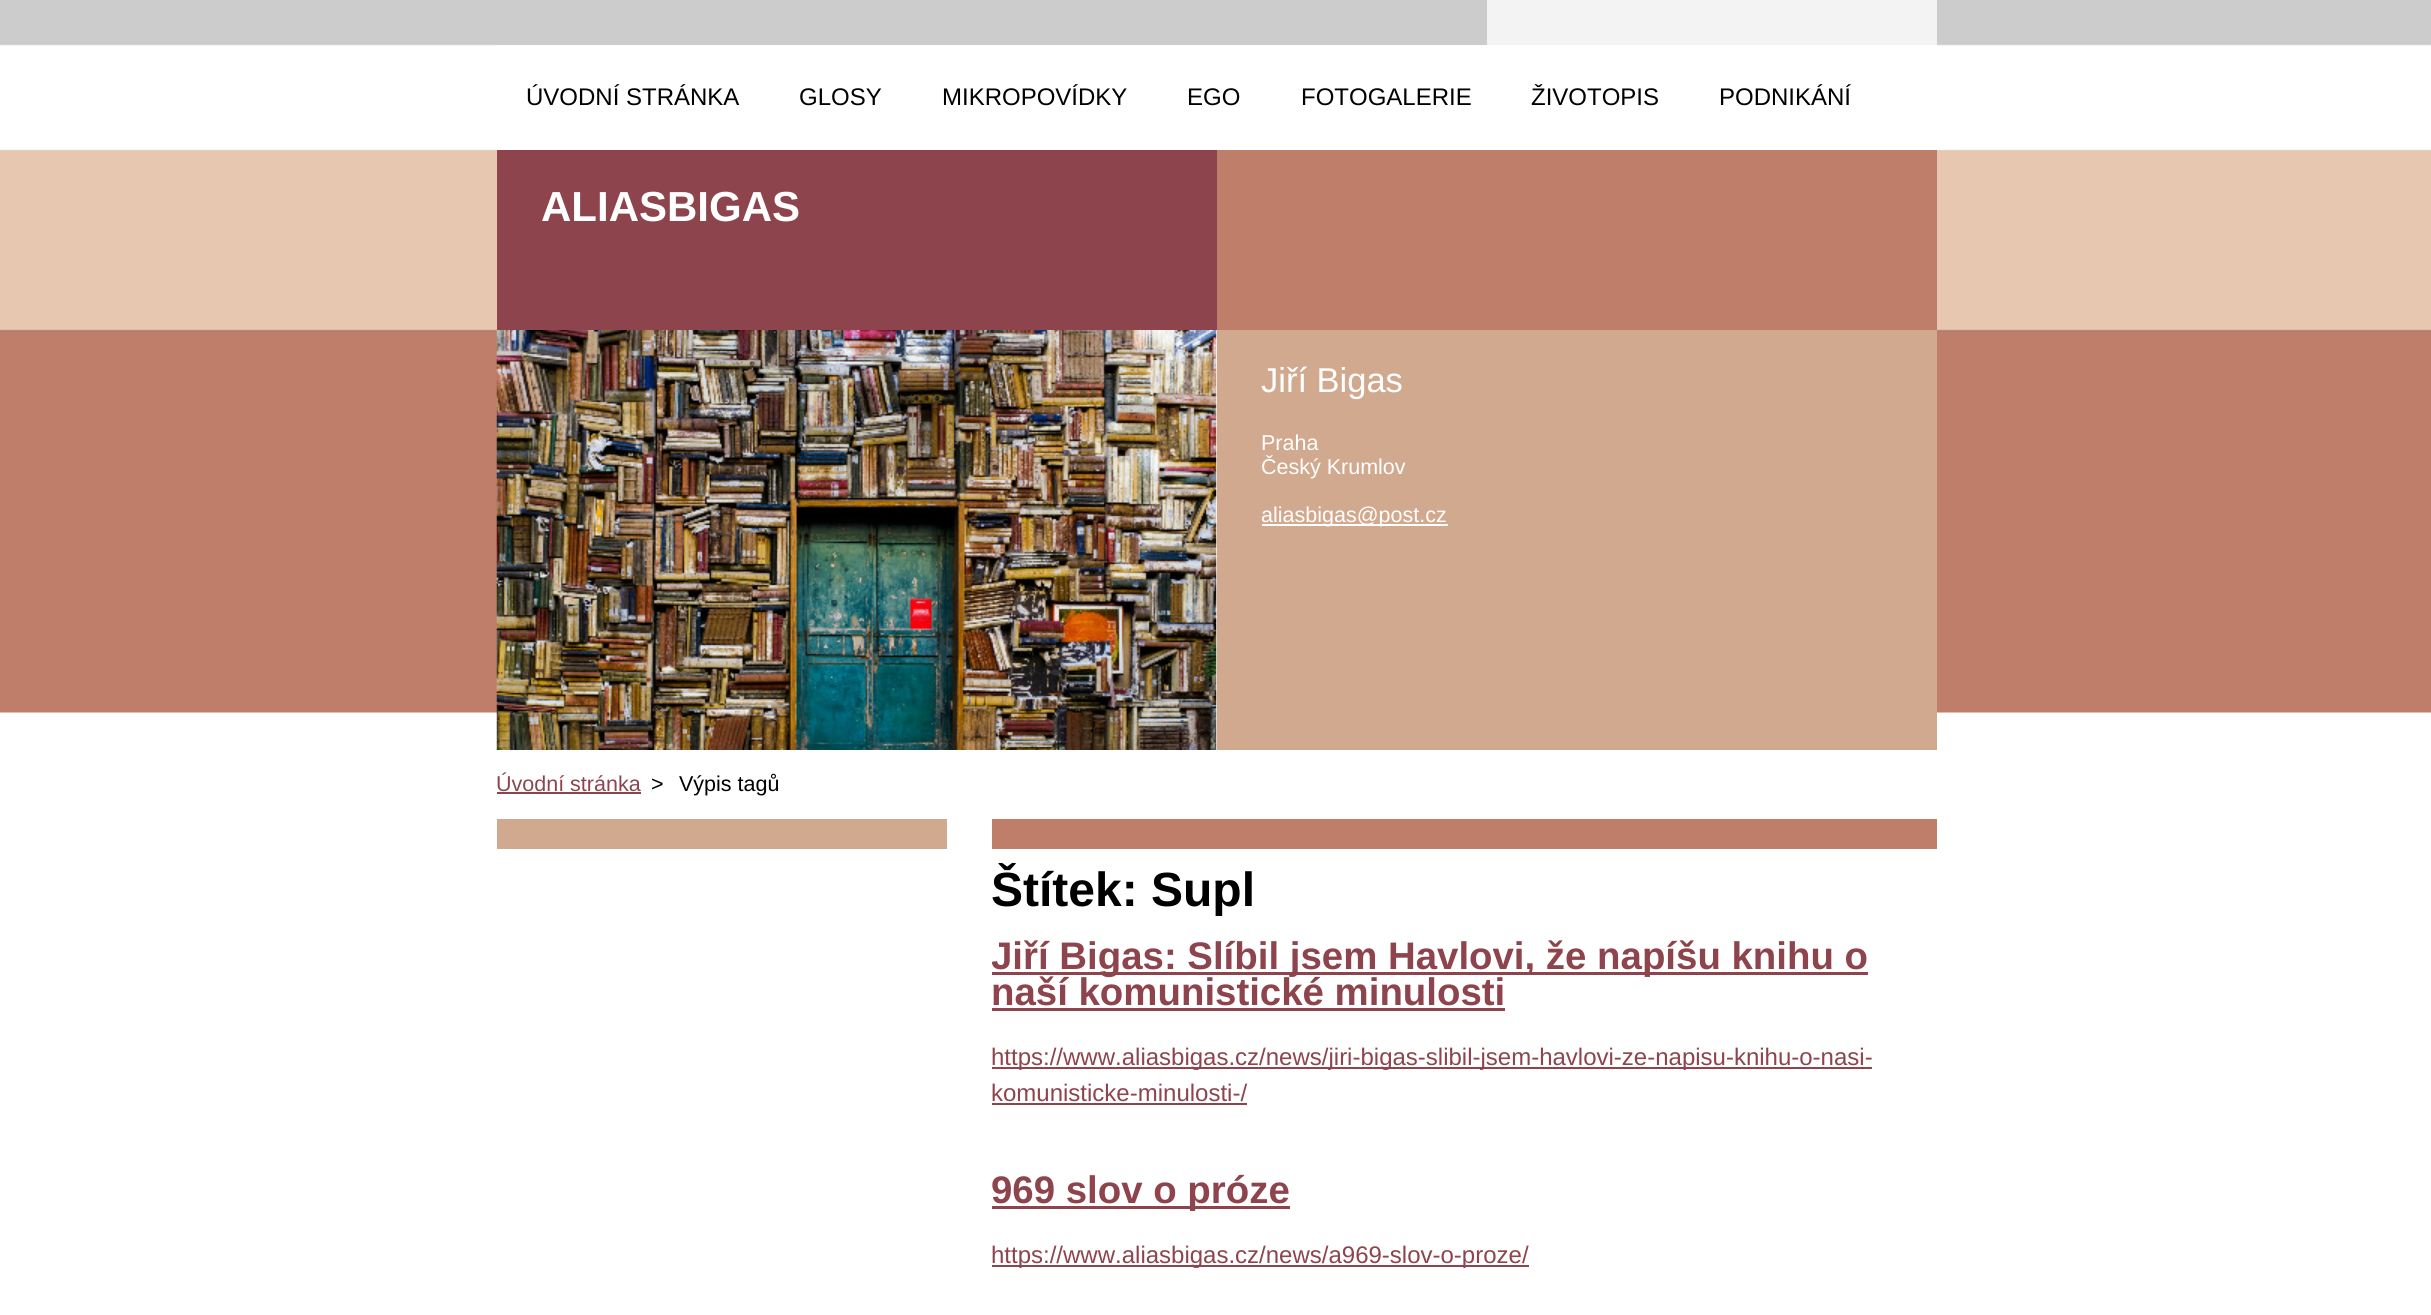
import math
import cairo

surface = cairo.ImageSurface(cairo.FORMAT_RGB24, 2431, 1315)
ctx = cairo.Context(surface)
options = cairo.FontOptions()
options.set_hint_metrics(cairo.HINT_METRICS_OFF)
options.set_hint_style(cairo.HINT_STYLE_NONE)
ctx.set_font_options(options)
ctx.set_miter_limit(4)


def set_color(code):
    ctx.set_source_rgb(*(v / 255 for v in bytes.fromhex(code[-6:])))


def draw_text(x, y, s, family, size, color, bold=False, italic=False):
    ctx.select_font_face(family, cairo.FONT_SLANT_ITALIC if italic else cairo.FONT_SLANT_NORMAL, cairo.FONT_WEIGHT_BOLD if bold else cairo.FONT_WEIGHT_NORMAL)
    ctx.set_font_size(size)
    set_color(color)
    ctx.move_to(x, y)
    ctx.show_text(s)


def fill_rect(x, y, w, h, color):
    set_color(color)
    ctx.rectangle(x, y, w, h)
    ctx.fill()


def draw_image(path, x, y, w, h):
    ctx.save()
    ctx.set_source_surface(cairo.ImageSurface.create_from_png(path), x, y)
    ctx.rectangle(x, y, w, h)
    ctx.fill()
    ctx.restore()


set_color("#ffffff")
ctx.paint()
draw_image("assets/img1.png", 0, 0, 2431, 713)
fill_rect(497, 44, 990, 1, "#cccccc")
fill_rect(1487, 0, 450, 45, "#f3f3f3")
fill_rect(497, 45, 1440, 105, "#ffffff")
draw_text(526, 105, "ÚVODNÍ STRÁNKA", "Liberation Sans", 24, "#000000")
draw_text(799, 105, "GLOSY", "Liberation Sans", 24, "#000000")
draw_text(942, 105, "MIKROPOVÍDKY", "Liberation Sans", 24, "#000000")
draw_text(1187, 105, "EGO", "Liberation Sans", 24, "#000000")
draw_text(1301, 105, "FOTOGALERIE", "Liberation Sans", 24, "#000000")
draw_text(1531, 105, "ŽIVOTOPIS", "Liberation Sans", 24, "#000000")
draw_text(1719, 105, "PODNIKÁNÍ", "Liberation Sans", 24, "#000000")
fill_rect(497, 150, 720, 180, "#8e444d")
draw_text(541, 221, "ALIASBIGAS", "Liberation Sans", 42, "#ffffff", bold=True)
fill_rect(1217, 150, 720, 180, "#bf7e6a")
fill_rect(1216, 330, 1, 383, "#ffffff")
draw_image("assets/img2.png", 496, 330, 721, 420)
fill_rect(1217, 330, 720, 420, "#d1a98e")
draw_text(1261, 392, "Jiří Bigas", "Liberation Sans", 34.5, "#ffffff")
draw_text(1261, 450, "Praha", "Liberation Sans", 21.5, "#ffffff")
draw_text(1261, 474, "Český Krumlov", "Liberation Sans", 21.5, "#ffffff")
fill_rect(1262, 524, 186, 2, "#ffffff")
ctx.save()
ctx.rectangle(1262, 360, 630, 167)
ctx.clip()
draw_text(1261, 522, "aliasbig", "Liberation Sans", 21.5, "#ffffff")
ctx.restore()
draw_text(1334, 522, "as@post.cz", "Liberation Sans", 21.5, "#ffffff")
draw_text(496, 791, "Úvodní stránka", "Liberation Sans", 21.5, "#8e444d")
fill_rect(497, 792, 144, 2, "#8e444d")
draw_text(651, 791, ">", "Liberation Sans", 21.5, "#000000")
draw_text(679, 791, "Výpis tagů", "Liberation Sans", 21.5, "#000000")
fill_rect(497, 819, 450, 30, "#d1a98e")
fill_rect(992, 819, 945, 30, "#bf7e6a")
draw_text(991, 906, "Štítek: Supl", "Liberation Sans", 48, "#000000", bold=True)
fill_rect(992, 972, 876, 3, "#8e444d")
ctx.save()
ctx.rectangle(992, 938, 945, 174)
ctx.clip()
draw_text(991, 969, "Jiří Bigas: Slíbil jsem Havlovi, že napíšu knihu o", "Liberation Sans", 38.4, "#8e444d", bold=True)
ctx.restore()
draw_text(991, 1005, "naší komunistické minulosti", "Liberation Sans", 38.4, "#8e444d", bold=True)
fill_rect(992, 1008, 513, 3, "#8e444d")
fill_rect(992, 1067, 880, 2, "#8e444d")
draw_text(991, 1065, "https://www.aliasbigas.cz/news/jiri-bigas-slibil-jsem-havlovi-ze-napisu-knihu-o-nasi-", "Liberation Sans", 24, "#8e444d")
draw_text(991, 1101, "komunisticke-minulosti-/", "Liberation Sans", 24, "#8e444d")
fill_rect(992, 1103, 255, 2, "#8e444d")
fill_rect(992, 1206, 298, 3, "#8e444d")
draw_text(991, 1203, "969 slov o próze", "Liberation Sans", 38.4, "#8e444d", bold=True)
fill_rect(992, 1265, 537, 2, "#8e444d")
draw_text(991, 1263, "https://www.aliasbigas.cz/news/a969-slov-o-proze/", "Liberation Sans", 24, "#8e444d")
surface.write_to_png("output.png")
